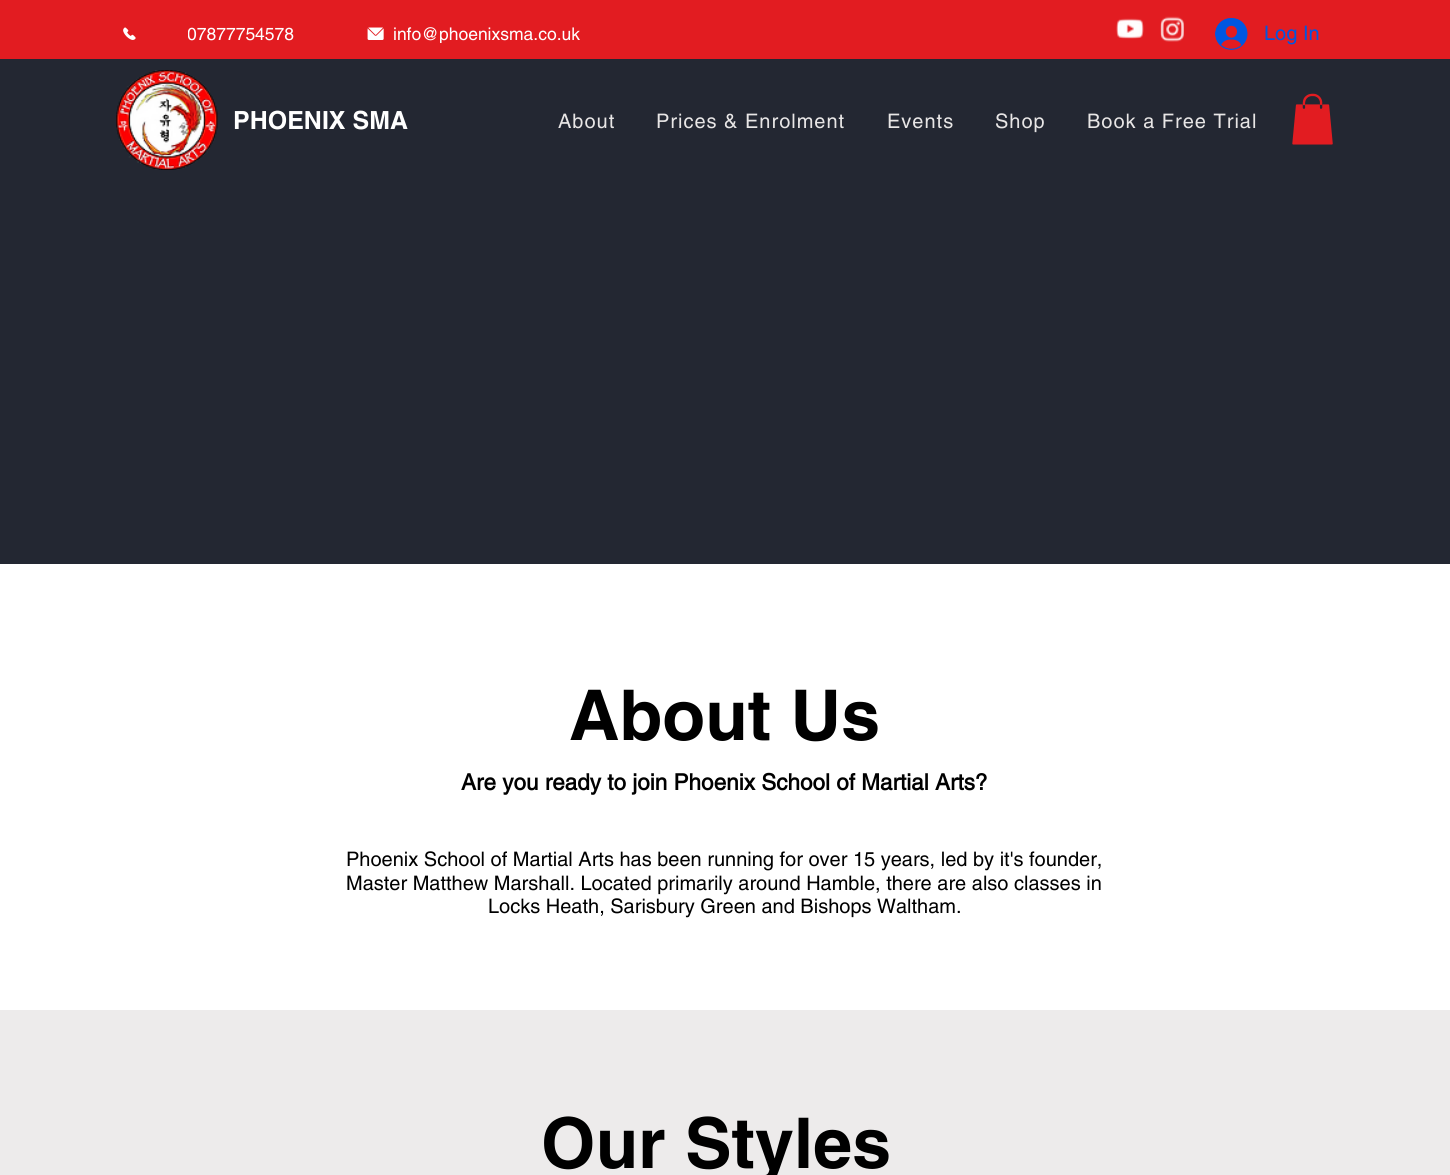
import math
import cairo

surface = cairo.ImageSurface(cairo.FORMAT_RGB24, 1450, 1175)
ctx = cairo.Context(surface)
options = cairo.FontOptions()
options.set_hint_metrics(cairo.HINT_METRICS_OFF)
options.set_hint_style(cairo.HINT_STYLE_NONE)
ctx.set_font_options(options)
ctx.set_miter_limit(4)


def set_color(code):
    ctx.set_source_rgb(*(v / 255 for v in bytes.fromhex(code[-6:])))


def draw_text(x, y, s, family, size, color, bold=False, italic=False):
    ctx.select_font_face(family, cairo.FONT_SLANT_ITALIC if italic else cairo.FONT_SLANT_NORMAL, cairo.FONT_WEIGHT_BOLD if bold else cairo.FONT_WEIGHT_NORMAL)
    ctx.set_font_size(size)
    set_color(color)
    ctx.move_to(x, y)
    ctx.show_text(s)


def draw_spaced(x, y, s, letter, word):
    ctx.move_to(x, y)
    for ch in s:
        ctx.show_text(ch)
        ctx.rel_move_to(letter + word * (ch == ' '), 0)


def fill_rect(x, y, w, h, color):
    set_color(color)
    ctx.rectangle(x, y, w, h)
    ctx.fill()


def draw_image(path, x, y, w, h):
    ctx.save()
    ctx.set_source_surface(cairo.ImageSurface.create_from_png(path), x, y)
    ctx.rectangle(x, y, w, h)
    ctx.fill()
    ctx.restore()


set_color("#ffffff")
ctx.paint()
fill_rect(0, 0, 1450, 59, "#e21c21")
draw_image("assets/img1.png", 123, 27, 13, 13)
ctx.save()
ctx.rectangle(188, 25, 106, 18)
ctx.clip()
draw_text(187, 40, "07877754578", "helvetica", 17.5, "#ffffff")
ctx.restore()
draw_image("assets/img2.png", 367, 27, 17, 13)
ctx.save()
ctx.rectangle(394, 25, 186, 18)
ctx.clip()
draw_text(393, 40, "info@phoenixsma.co.uk", "helvetica", 17.5, "#ffffff")
ctx.restore()
draw_image("assets/img3.png", 1116, 18, 28, 21)
draw_image("assets/img4.png", 1160, 16, 24, 26)
draw_image("assets/img5.png", 1215, 18, 33, 32)
draw_text(1264, 40, "Log In", "helvetica", 20, "#0057e1")
fill_rect(0, 59, 1450, 505, "#232732")
draw_image("assets/img6.png", 116, 70, 102, 100)
draw_text(233, 129, "PHOENIX SMA", "helvetica", 25, "#ffffff", bold=True)
ctx.select_font_face("helvetica")
ctx.set_font_size(20)
set_color("#e8e6e6")
draw_spaced(558, 128, "About", 1, 0)
draw_spaced(656, 128, "Prices & Enrolment", 1, 0)
draw_spaced(887, 128, "Events", 1, 0)
draw_spaced(995, 128, "Shop", 1, 0)
draw_spaced(1087, 128, "Book a Free Trial", 1, 0)
draw_image("assets/img7.png", 1292, 93, 41, 52)
draw_text(569, 740, "About Us", "helvetica", 70, "#000000", bold=True)
draw_text(461, 790, "Are you ready to join Phoenix School of Martial Arts?", "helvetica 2", 22.5, "#000000", bold=True)
draw_text(346, 866, "Phoenix School of Martial Arts has been running for over 15 years, led by it's founder,", "helvetica", 20, "#000000")
draw_text(346, 890, "Master Matthew Marshall. Located primarily around Hamble, there are also classes in", "helvetica", 20, "#000000")
draw_text(488, 913, "Locks Heath, Sarisbury Green and Bishops Waltham.", "helvetica", 20, "#000000")
fill_rect(0, 1010, 1450, 165, "#edebeb")
draw_text(541, 1168, "Our Styles", "helvetica", 70, "#000000", bold=True)
surface.write_to_png("output.png")
